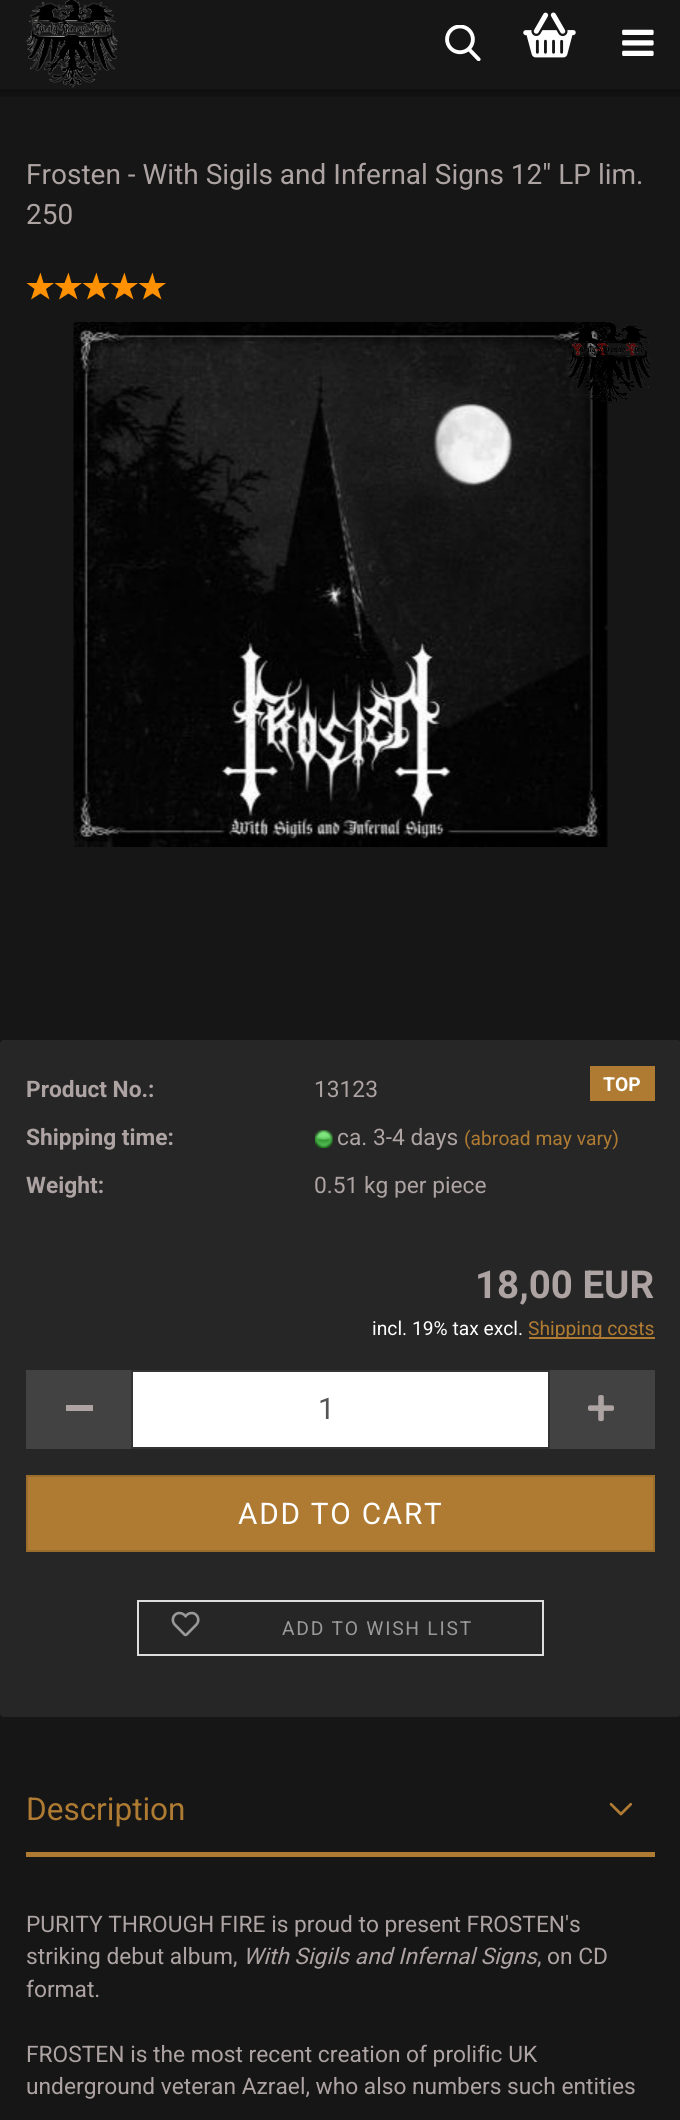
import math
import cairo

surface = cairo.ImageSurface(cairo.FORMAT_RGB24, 680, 2120)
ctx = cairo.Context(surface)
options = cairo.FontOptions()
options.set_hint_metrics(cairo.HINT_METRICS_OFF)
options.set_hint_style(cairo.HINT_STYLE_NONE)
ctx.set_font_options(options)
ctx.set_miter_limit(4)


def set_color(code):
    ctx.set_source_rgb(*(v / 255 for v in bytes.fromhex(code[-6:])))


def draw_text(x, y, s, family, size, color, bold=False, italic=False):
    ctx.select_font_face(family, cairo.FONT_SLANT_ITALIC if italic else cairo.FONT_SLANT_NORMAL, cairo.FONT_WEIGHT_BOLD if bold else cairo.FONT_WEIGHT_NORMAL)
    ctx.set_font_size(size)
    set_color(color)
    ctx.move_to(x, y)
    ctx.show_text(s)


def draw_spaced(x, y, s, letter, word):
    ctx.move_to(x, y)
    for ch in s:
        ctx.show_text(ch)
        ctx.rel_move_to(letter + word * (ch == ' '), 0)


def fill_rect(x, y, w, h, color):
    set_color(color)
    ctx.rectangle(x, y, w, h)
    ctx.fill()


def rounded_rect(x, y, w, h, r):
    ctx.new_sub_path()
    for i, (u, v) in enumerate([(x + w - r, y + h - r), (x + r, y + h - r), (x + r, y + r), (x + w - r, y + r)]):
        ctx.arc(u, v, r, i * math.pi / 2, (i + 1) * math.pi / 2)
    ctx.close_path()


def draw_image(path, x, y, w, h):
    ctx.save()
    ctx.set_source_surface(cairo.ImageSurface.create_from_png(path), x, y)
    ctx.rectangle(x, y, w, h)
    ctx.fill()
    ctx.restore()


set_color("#161616")
ctx.paint()
draw_image("assets/img1.png", 26, 0, 92, 88)
draw_image("assets/img2.png", 445, 25, 36, 36)
draw_image("assets/img3.png", 523, 12, 53, 46)
draw_image("assets/img4.png", 622, 29, 32, 27)
draw_image("assets/img5.png", 0, 89, 680, 8)
draw_text(26, 184, "Frosten - With Sigils and Infernal Signs 12\" LP lim.", "Roboto", 28, "#aea3a3")
draw_text(26, 224, "250", "Roboto", 28, "#aea3a3")
set_color("#ff9000")
ctx.new_path()
ctx.move_to(40.5, 293.5)
ctx.line_to(31, 299.5)
ctx.line_to(34.5, 289)
ctx.line_to(26.5, 283)
ctx.line_to(36.5, 283)
ctx.line_to(40.5, 272.5)
ctx.line_to(43.5, 283)
ctx.line_to(54, 283)
ctx.line_to(46, 289)
ctx.line_to(49.5, 299.5)
ctx.close_path()
ctx.move_to(68.5, 293.5)
ctx.line_to(59, 299.5)
ctx.line_to(62.5, 289)
ctx.line_to(54.5, 283)
ctx.line_to(64.5, 283)
ctx.line_to(68.5, 272.5)
ctx.line_to(71.5, 283)
ctx.line_to(82, 283)
ctx.line_to(74, 289)
ctx.line_to(77.5, 299.5)
ctx.close_path()
ctx.fill()
ctx.new_path()
ctx.move_to(96.5, 293.5)
ctx.line_to(87, 299.5)
ctx.line_to(90.5, 289)
ctx.line_to(82.5, 283)
ctx.line_to(92.5, 283)
ctx.line_to(96.5, 272.5)
ctx.line_to(99.5, 283)
ctx.line_to(110, 283)
ctx.line_to(102, 289)
ctx.line_to(105.5, 299.5)
ctx.close_path()
ctx.move_to(124.5, 293.5)
ctx.line_to(115, 299.5)
ctx.line_to(118.5, 289)
ctx.line_to(110.5, 283)
ctx.line_to(120.5, 283)
ctx.line_to(124.5, 272.5)
ctx.line_to(127.5, 283)
ctx.line_to(138, 283)
ctx.line_to(130, 289)
ctx.line_to(133.5, 299.5)
ctx.close_path()
ctx.fill()
ctx.new_path()
ctx.move_to(152.5, 293.5)
ctx.line_to(143, 299.5)
ctx.line_to(146.5, 289)
ctx.line_to(138.5, 283)
ctx.line_to(148.5, 283)
ctx.line_to(152.5, 272.5)
ctx.line_to(155.5, 283)
ctx.line_to(166, 283)
ctx.line_to(158, 289)
ctx.line_to(161.5, 299.5)
ctx.close_path()
ctx.fill()
draw_image("assets/img6.png", 73, 322, 535, 525)
draw_image("assets/img7.png", 568, 322, 84, 83)
set_color("#262626")
rounded_rect(0, 1040, 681, 677, 4)
ctx.fill()
fill_rect(590, 1066, 65, 35, "#af7b33")
draw_text(603, 1091, "TOP", "Roboto", 19.25, "#ffffff", bold=True)
draw_text(26, 1097, "Product No.:", "Roboto", 22.75, "#aea3a3", bold=True)
draw_text(314, 1097, "13123", "Roboto", 22.75, "#aea3a3")
draw_text(26, 1145, "Shipping time:", "Roboto", 22.75, "#aea3a3", bold=True)
draw_image("assets/img8.png", 315, 1130, 18, 18)
draw_text(337, 1145, "ca. 3-4 days", "Roboto", 22.75, "#aea3a3")
draw_text(464, 1145, "(abroad may vary)", "Roboto", 19.25, "#af7b33")
draw_text(26, 1193, "Weight:", "Roboto", 22.75, "#aea3a3", bold=True)
draw_text(314, 1193, "0.51 kg per piece", "Roboto", 22.75, "#aea3a3")
draw_text(475, 1298, "18,00 EUR", "Roboto", 38.5, "#aea3a3", bold=True)
draw_text(372, 1335, "incl. 19% tax excl.", "Roboto", 19.25, "#ffffff")
fill_rect(529, 1337, 126, 2, "#af7b33")
draw_text(528, 1335, "Shipping costs", "Roboto", 19.25, "#af7b33")
fill_rect(26, 1370, 105, 79, "#424242")
fill_rect(66, 1405, 27, 6, "#aea3a3")
set_color("#ffffff")
ctx.rectangle(132, 1371, 417, 77)
ctx.fill_preserve()
set_color("#333333")
ctx.stroke()
draw_text(318, 1419, "1", "Roboto", 29.75, "#555555")
fill_rect(550, 1370, 105, 79, "#424242")
draw_image("assets/img9.png", 588, 1395, 26, 27)
set_color("#af7b33")
ctx.rectangle(27, 1476, 627, 75)
ctx.fill_preserve()
set_color("#9b6d2d")
ctx.stroke()
set_color("#ffffff")
draw_spaced(238, 1524, "ADD TO CART", 1.75, 0)
ctx.rectangle(138, 1601, 405, 54)
set_color("#dddddd")
ctx.stroke()
draw_image("assets/img10.png", 171, 1611, 29, 26)
ctx.set_font_size(19.25)
set_color("#999999")
draw_spaced(282, 1635, "ADD TO WISH LIST", 1.75, 0)
fill_rect(26, 1852, 629, 5, "#af7b33")
draw_text(26, 1820, "Description", "Roboto", 31.5, "#af7b33")
draw_image("assets/img11.png", 609, 1802, 24, 14)
draw_text(26, 1932, "PURITY THROUGH FIRE is proud to present FROSTEN's", "Roboto", 22.75, "#aea3a3")
draw_text(26, 1964, "striking debut album,", "Roboto", 22.75, "#aea3a3")
draw_text(243, 1964, "With Sigils and Infernal Signs", "Roboto", 22.75, "#aea3a3", italic=True)
draw_text(537, 1964, ", on CD", "Roboto", 22.75, "#aea3a3")
draw_text(26, 1997, "format.", "Roboto", 22.75, "#aea3a3")
draw_text(26, 2062, "FROSTEN is the most recent creation of prolific UK", "Roboto", 22.75, "#aea3a3")
draw_text(26, 2094, "underground veteran Azrael, who also numbers such entities", "Roboto", 22.75, "#aea3a3")
set_color("#161616")
ctx.new_path()
ctx.move_to(584.5, 2059.5)
ctx.curve_to(613.5, 2059.5, 637, 2063.5, 637, 2068.5)
ctx.curve_to(637, 2073.5, 613.5, 2077.5, 584.5, 2077.5)
ctx.curve_to(555.5, 2077.5, 532, 2073.5, 532, 2068.5)
ctx.curve_to(532, 2063.5, 555.5, 2059.5, 584.5, 2059.5)
ctx.close_path()
ctx.fill()
surface.write_to_png("output.png")
